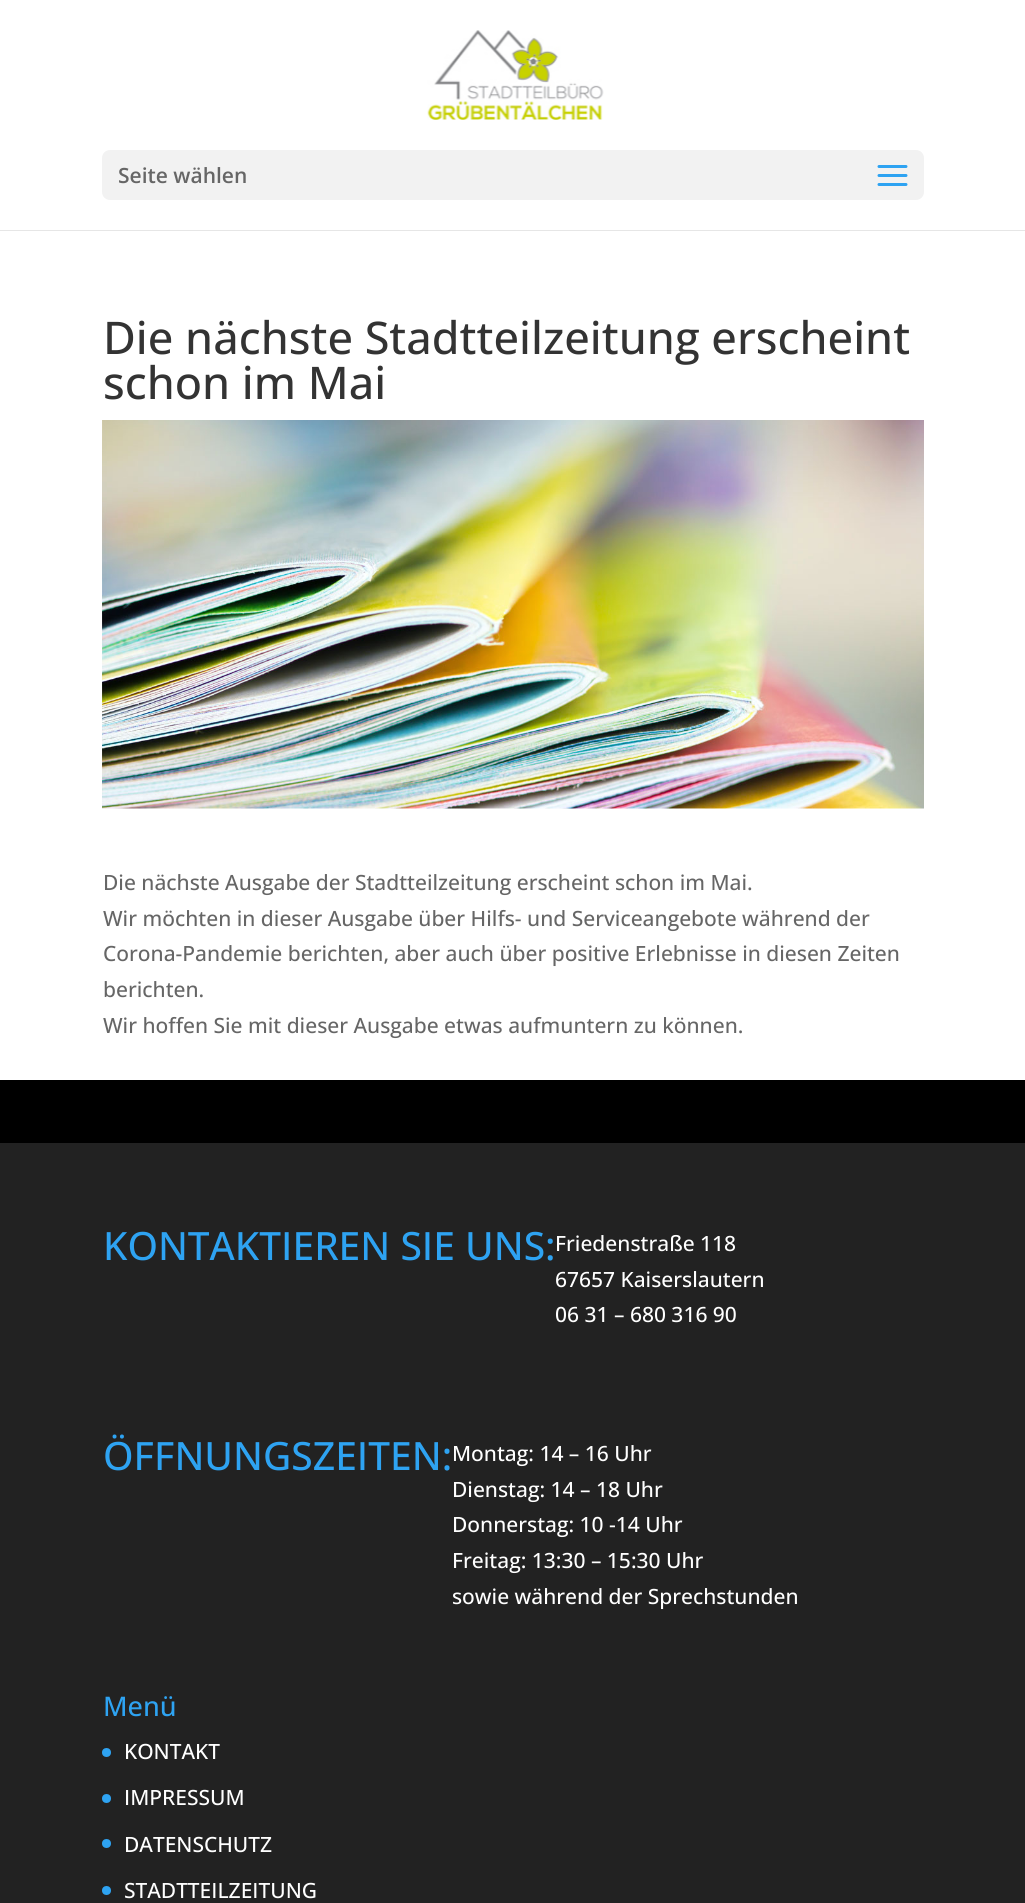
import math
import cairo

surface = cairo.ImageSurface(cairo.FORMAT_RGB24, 1025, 1903)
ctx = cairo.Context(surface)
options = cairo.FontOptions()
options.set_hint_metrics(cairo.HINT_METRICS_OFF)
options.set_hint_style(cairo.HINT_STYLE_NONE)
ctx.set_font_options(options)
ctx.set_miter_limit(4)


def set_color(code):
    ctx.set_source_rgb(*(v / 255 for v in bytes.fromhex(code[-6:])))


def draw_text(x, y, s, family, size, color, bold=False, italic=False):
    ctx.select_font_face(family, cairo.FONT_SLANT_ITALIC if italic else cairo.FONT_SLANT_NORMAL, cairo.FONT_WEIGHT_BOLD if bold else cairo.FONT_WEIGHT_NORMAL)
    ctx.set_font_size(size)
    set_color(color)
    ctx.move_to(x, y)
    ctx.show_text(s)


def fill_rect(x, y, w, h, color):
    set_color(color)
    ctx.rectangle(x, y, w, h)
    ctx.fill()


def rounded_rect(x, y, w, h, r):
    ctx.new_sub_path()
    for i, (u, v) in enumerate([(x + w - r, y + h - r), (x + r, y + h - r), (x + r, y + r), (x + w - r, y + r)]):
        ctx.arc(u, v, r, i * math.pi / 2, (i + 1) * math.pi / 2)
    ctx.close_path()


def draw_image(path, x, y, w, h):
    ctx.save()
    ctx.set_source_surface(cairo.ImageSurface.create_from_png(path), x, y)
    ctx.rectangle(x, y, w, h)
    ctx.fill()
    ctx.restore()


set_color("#000000")
ctx.paint()
fill_rect(0, 230, 1025, 1, "#e6e6e6")
fill_rect(0, 0, 1025, 230, "#ffffff")
draw_image("assets/img1.png", 427, 30, 177, 90)
set_color("#f2f2f2")
rounded_rect(102, 150, 822, 50, 8)
ctx.fill()
draw_text(118, 183, "Seite wählen", "Open Sans SemiBold", 21, "#666666")
draw_image("assets/img2.png", 877, 165, 31, 21)
fill_rect(0, 231, 1025, 849, "#ffffff")
draw_text(103, 354, "Die nächste Stadtteilzeitung erscheint", "Open Sans Medium", 45, "#333333")
draw_text(103, 399, "schon im Mai", "Open Sans Medium", 45, "#333333")
draw_image("assets/img3.png", 102, 420, 822, 389)
draw_text(103, 890, "Die nächste Ausgabe der Stadtteilzeitung erscheint schon im Mai.", "Open Sans Medium", 21, "#666666")
draw_text(103, 926, "Wir möchten in dieser Ausgabe über Hilfs- und Serviceangebote während der", "Open Sans Medium", 21, "#666666")
draw_text(103, 961, "Corona-Pandemie berichten, aber auch über positive Erlebnisse in diesen Zeiten", "Open Sans Medium", 21, "#666666")
draw_text(103, 997, "berichten.", "Open Sans Medium", 21, "#666666")
draw_text(103, 1033, "Wir hoffen Sie mit dieser Ausgabe etwas aufmuntern zu können.", "Open Sans Medium", 21, "#666666")
fill_rect(0, 1143, 1025, 760, "#222222")
draw_text(103, 1260, "KONTAKTIEREN SIE UNS:", "Open Sans Medium", 39, "#2ea3f2")
draw_text(555, 1251, "Friedenstraße 118", "Open Sans Medium", 21, "#ffffff")
draw_text(555, 1287, "67657 Kaiserslautern", "Open Sans Medium", 21, "#ffffff")
draw_text(555, 1322, "06 31 – 680 316 90", "Open Sans Medium", 21, "#ffffff")
draw_text(103, 1470, "ÖFFNUNGSZEITEN:", "Open Sans Medium", 39, "#2ea3f2")
draw_text(452, 1461, "Montag: 14 – 16 Uhr", "Open Sans Medium", 21, "#ffffff")
draw_text(452, 1497, "Dienstag: 14 – 18 Uhr", "Open Sans Medium", 21, "#ffffff")
draw_text(452, 1532, "Donnerstag: 10 -14 Uhr", "Open Sans Medium", 21, "#ffffff")
draw_text(452, 1568, "Freitag: 13:30 – 15:30 Uhr", "Open Sans Medium", 21, "#ffffff")
draw_text(452, 1604, "sowie während der Sprechstunden", "Open Sans Medium", 21, "#ffffff")
draw_text(103, 1716, "Menü", "Open Sans Medium", 27, "#2ea3f2")
ctx.new_path()
ctx.arc(106.5, 1752.5, 4.5, 0, 2 * math.pi)
ctx.fill()
draw_text(124, 1759, "KONTAKT", "Open Sans Medium", 21, "#ffffff")
set_color("#2ea3f2")
ctx.new_path()
ctx.arc(106.5, 1798.5, 4.5, 0, 2 * math.pi)
ctx.fill()
draw_text(124, 1805, "IMPRESSUM", "Open Sans Medium", 21, "#ffffff")
set_color("#2ea3f2")
ctx.new_path()
ctx.arc(106.5, 1843.5, 4.5, 0, 2 * math.pi)
ctx.fill()
draw_text(124, 1852, "DATENSCHUTZ", "Open Sans Medium", 21, "#ffffff")
set_color("#2ea3f2")
ctx.new_path()
ctx.arc(106.5, 1890.5, 4.5, 0, 2 * math.pi)
ctx.fill()
draw_text(124, 1898, "STADTTEILZEITUNG", "Open Sans Medium", 21, "#ffffff")
surface.write_to_png("output.png")
